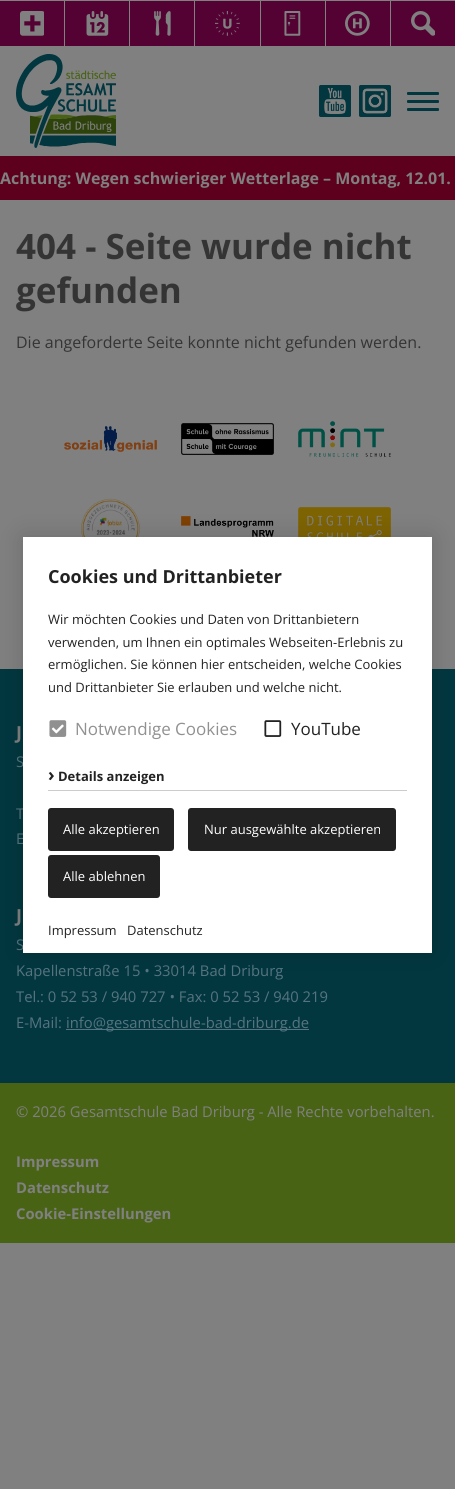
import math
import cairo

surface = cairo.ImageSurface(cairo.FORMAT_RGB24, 455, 1489)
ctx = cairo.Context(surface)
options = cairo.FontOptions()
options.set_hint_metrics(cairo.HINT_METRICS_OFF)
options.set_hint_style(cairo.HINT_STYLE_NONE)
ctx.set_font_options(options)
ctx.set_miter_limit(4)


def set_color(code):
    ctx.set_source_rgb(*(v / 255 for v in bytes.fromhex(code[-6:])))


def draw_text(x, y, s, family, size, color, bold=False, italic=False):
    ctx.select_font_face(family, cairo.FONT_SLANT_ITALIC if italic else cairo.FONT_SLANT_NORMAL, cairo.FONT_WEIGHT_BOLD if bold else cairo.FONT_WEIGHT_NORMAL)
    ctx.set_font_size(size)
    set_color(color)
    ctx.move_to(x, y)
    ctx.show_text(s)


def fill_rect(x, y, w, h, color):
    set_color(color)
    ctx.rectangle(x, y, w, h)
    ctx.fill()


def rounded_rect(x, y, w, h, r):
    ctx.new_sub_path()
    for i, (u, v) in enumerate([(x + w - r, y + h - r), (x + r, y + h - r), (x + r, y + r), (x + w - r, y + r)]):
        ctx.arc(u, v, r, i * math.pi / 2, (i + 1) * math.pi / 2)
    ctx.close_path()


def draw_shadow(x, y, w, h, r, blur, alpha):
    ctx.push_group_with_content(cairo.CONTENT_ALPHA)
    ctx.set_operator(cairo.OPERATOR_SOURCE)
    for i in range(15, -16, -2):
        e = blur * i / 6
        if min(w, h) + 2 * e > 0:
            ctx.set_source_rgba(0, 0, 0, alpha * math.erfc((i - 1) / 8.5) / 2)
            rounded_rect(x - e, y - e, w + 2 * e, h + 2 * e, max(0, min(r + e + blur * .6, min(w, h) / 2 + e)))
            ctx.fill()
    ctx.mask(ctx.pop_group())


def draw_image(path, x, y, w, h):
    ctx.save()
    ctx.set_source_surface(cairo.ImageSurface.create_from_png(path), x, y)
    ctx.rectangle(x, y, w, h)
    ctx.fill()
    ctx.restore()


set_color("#808080")
ctx.paint()
fill_rect(0, 1, 64, 45, "#540133")
draw_image("assets/img1.png", 20, 11, 24, 25)
fill_rect(65, 1, 64, 45, "#540133")
draw_image("assets/img2.png", 86, 11, 23, 25)
fill_rect(130, 1, 64, 45, "#540133")
draw_image("assets/img3.png", 154, 11, 17, 25)
fill_rect(195, 1, 65, 45, "#540133")
draw_image("assets/img4.png", 215, 11, 25, 25)
fill_rect(261, 1, 64, 45, "#540133")
draw_image("assets/img5.png", 284, 11, 17, 25)
fill_rect(326, 1, 64, 45, "#540133")
draw_image("assets/img6.png", 345, 11, 25, 25)
fill_rect(391, 1, 64, 45, "#540133")
draw_image("assets/img7.png", 411, 11, 24, 25)
draw_image("assets/img8.png", 16, 54, 100, 94)
draw_image("assets/img9.png", 319, 85, 32, 32)
draw_image("assets/img10.png", 359, 85, 32, 32)
set_color("#023740")
rounded_rect(407, 100, 32, 3, 1)
ctx.fill()
rounded_rect(407, 92, 32, 3, 1)
ctx.fill()
rounded_rect(407, 108, 32, 3, 1)
ctx.fill()
fill_rect(0, 156, 455, 44, "#5d001d")
draw_text(0, 184, "Achtung: Wegen schwieriger Wetterlage – Montag, 12.01.", "Open Sans", 16, "#808080", bold=True)
draw_text(16, 259, "404 - Seite wurde nicht", "Open Sans", 35, "#343434", bold=True)
draw_text(16, 303, "gefunden", "Open Sans", 35, "#343434", bold=True)
draw_text(16, 348, "Die angeforderte Seite konnte nicht gefunden werden.", "Open Sans", 16, "#343434")
draw_image("assets/img11.png", 64, 426, 93, 26)
draw_image("assets/img12.png", 181, 423, 93, 32)
draw_image("assets/img13.png", 298, 421, 93, 36)
draw_image("assets/img14.png", 81, 498, 59, 39)
draw_image("assets/img15.png", 181, 516, 93, 21)
draw_image("assets/img16.png", 298, 507, 93, 30)
fill_rect(0, 669, 455, 414, "#023740")
draw_text(16, 739, "J", "Open Sans", 18, "#808080", bold=True)
draw_text(16, 767, "S", "Open Sans", 14.8, "#567480")
draw_text(16, 819, "T", "Open Sans", 14.8, "#567480")
draw_text(16, 844, "E", "Open Sans", 14.8, "#567480")
draw_text(16, 922, "J", "Open Sans", 18, "#808080", bold=True)
draw_text(16, 950, "S", "Open Sans", 14.8, "#567480")
draw_text(16, 976, "Kapellenstraße 15 • 33014 Bad Driburg", "Open Sans", 14.8, "#567480")
draw_text(16, 1002, "Tel.: 0 52 53 / 940 727 • Fax: 0 52 53 / 940 219", "Open Sans", 14.8, "#567480")
draw_text(16, 1028, "E-Mail:", "Open Sans", 14.8, "#567480")
fill_rect(66, 1029, 243, 1, "#567480")
draw_text(66, 1028, "info@gesamtschule-bad-driburg.de", "Open Sans", 14.8, "#567480")
fill_rect(0, 1083, 455, 160, "#496315")
draw_text(16, 1117, "© 2026 Gesamtschule Bad Driburg - Alle Rechte vorbehalten.", "Open Sans", 14.8, "#808080")
draw_text(16, 1167, "Impressum", "Open Sans", 14.8, "#808080", bold=True)
draw_text(16, 1193, "Datenschutz", "Open Sans", 14.8, "#808080", bold=True)
draw_text(16, 1219, "Cookie-Einstellungen", "Open Sans", 14.8, "#808080", bold=True)
set_color("#000000")
draw_shadow(23, 537, 409, 416, 0, 12.5, 0.15)
fill_rect(23, 537, 409, 416, "#ffffff")
draw_text(48, 583, "Cookies und Drittanbieter", "Open Sans", 18, "#222222", bold=True)
draw_text(48, 624, "Wir möchten Cookies und Daten von Drittanbietern", "Open Sans", 13, "#222222")
draw_text(48, 647, "verwenden, um Ihnen ein optimales Webseiten-Erlebnis zu", "Open Sans", 13, "#222222")
draw_text(48, 669, "ermöglichen. Sie können hier entscheiden, welche Cookies", "Open Sans", 13, "#222222")
draw_text(48, 692, "und Drittanbieter Sie erlauben und welche nicht.", "Open Sans", 13, "#222222")
draw_image("assets/img17.png", 49, 720, 18, 17)
draw_text(75, 735, "Notwendige Cookies", "Open Sans", 17, "#919191")
draw_image("assets/img18.png", 264, 720, 18, 17)
draw_text(291, 735, "YouTube", "Open Sans", 17, "#222222")
draw_text(48, 781, "›", "Open Sans", 18, "#222222", bold=True)
draw_text(58, 781, "Details anzeigen", "Open Sans", 13, "#222222", bold=True)
fill_rect(48, 790, 359, 1, "#cccccc")
set_color("#222222")
rounded_rect(48, 808, 126, 43, 3)
ctx.fill()
draw_text(63, 834, "Alle akzeptieren", "Open Sans", 13, "#ffffff")
set_color("#222222")
rounded_rect(188, 808, 208, 43, 3)
ctx.fill()
draw_text(204, 834, "Nur ausgewählte akzeptieren", "Open Sans", 13, "#ffffff")
set_color("#222222")
rounded_rect(48, 855, 112, 43, 3)
ctx.fill()
draw_text(63, 881, "Alle ablehnen", "Open Sans", 13, "#ffffff")
draw_text(48, 935, "Impressum", "Open Sans", 13, "#222222")
draw_text(127, 935, "Datenschutz", "Open Sans", 13, "#222222")
surface.write_to_png("output.png")
